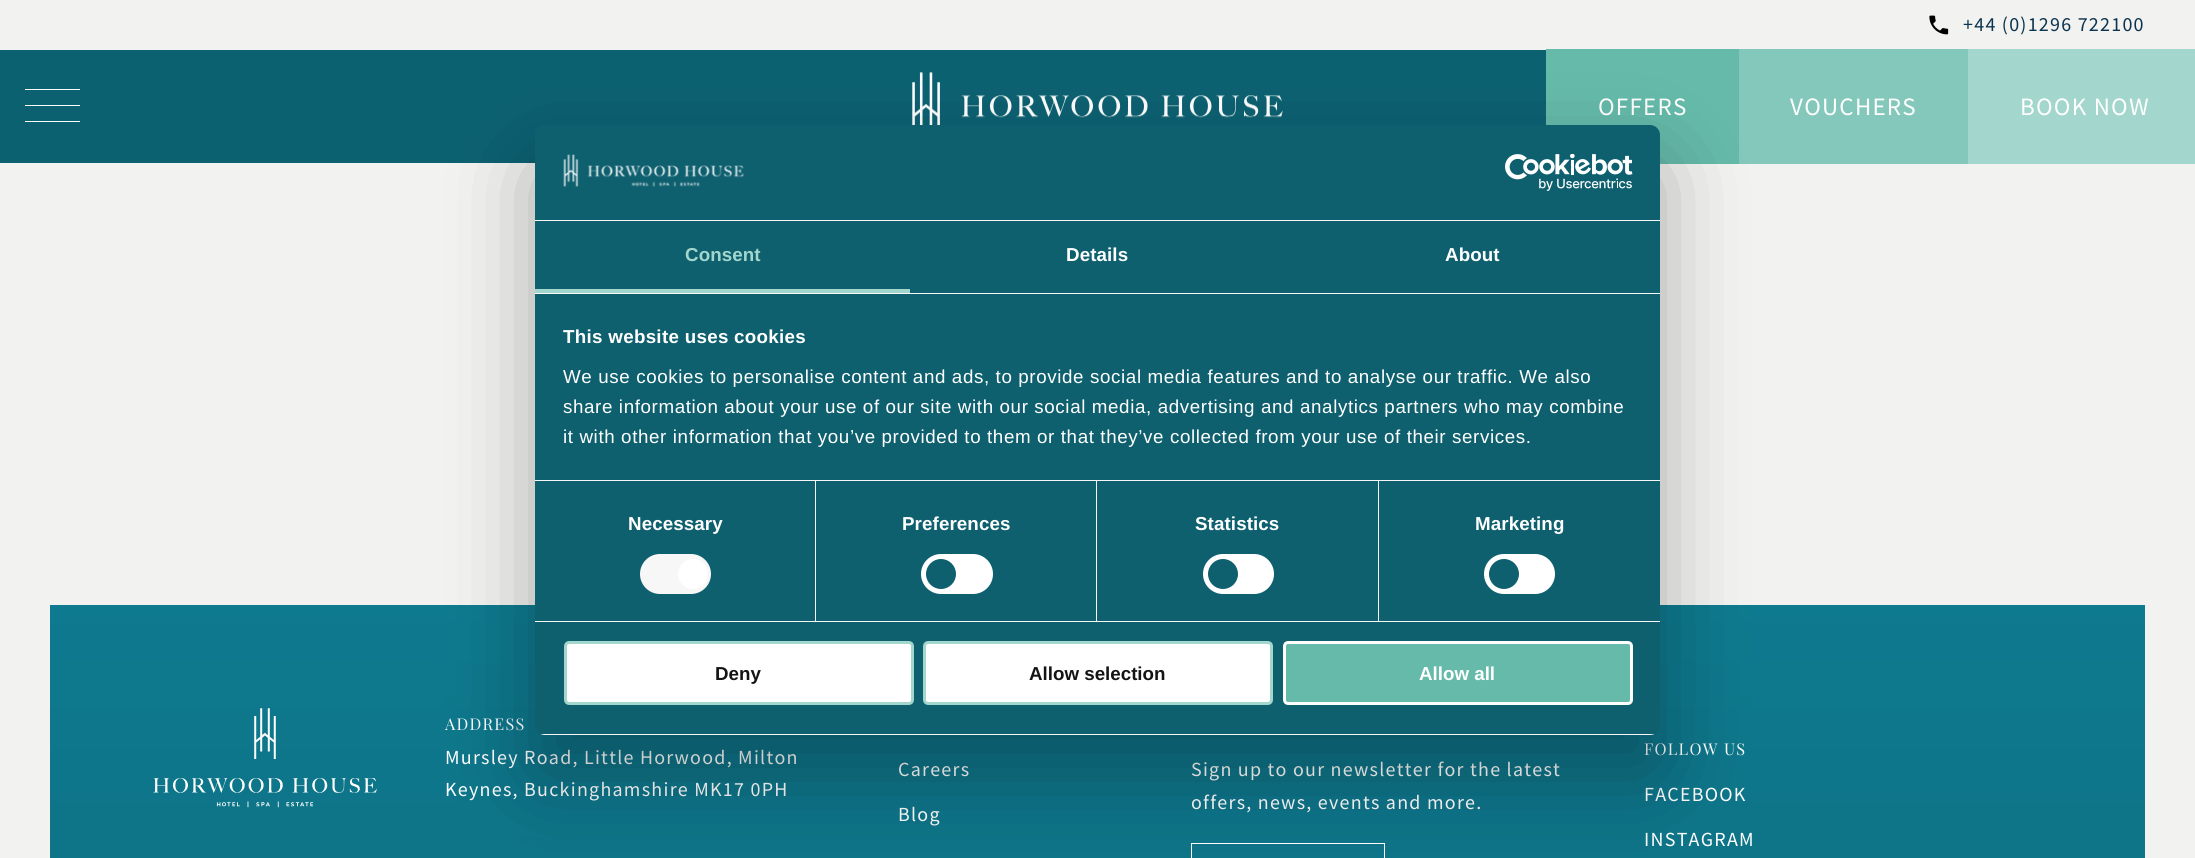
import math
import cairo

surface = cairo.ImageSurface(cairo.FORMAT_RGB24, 2195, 858)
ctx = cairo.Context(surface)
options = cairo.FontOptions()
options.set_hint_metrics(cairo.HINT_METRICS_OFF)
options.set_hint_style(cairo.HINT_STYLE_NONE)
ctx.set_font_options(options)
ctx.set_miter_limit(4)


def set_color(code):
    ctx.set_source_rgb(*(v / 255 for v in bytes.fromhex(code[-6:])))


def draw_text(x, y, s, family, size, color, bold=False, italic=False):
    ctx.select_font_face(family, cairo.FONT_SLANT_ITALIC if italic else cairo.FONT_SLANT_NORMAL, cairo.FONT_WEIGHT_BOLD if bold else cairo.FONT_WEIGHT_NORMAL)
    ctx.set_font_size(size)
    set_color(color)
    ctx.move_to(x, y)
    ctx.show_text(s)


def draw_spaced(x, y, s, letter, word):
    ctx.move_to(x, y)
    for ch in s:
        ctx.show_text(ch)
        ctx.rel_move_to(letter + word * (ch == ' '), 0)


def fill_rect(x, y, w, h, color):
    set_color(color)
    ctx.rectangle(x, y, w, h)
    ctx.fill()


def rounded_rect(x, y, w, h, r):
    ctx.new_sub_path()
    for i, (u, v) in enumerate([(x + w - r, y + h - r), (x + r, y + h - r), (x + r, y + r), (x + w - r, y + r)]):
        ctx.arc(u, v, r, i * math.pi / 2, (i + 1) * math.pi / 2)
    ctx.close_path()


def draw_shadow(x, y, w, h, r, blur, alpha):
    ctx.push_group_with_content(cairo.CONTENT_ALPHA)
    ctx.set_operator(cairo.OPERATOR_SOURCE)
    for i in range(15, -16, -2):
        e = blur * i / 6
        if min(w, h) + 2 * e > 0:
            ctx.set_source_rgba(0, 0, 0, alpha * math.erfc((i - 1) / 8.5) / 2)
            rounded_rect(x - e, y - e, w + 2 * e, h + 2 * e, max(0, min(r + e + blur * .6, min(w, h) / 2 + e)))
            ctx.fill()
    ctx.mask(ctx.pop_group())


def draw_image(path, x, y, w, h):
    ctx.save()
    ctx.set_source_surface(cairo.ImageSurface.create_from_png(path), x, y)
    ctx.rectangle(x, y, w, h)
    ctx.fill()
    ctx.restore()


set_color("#f2f2f0")
ctx.paint()
draw_image("assets/img1.png", 1929, 15, 20, 20)
ctx.select_font_face("Source Sans Pro")
ctx.set_font_size(20)
set_color("#0c344f")
draw_spaced(1963, 31, "+44 (0)1296 722100", 1.25, 0)
fill_rect(0, 50, 1546, 113, "#0c6171")
fill_rect(25, 89, 55, 1, "#ffffff")
fill_rect(25, 105, 55, 1, "#ffffff")
fill_rect(25, 121, 55, 1, "#ffffff")
draw_image("assets/img2.png", 912, 72, 371, 53)
fill_rect(1546, 49, 193, 115, "#65baaa")
ctx.set_font_size(25)
set_color("#ffffff")
draw_spaced(1598, 115, "OFFERS", 1.25, 0)
fill_rect(1739, 49, 229, 115, "#84c8bb")
set_color("#ffffff")
draw_spaced(1790, 115, "VOUCHERS", 1.25, 0)
fill_rect(1968, 49, 227, 115, "#a3d6cc")
set_color("#ffffff")
draw_spaced(2020, 115, "BOOK NOW", 1.25, 0)
gradient = cairo.LinearGradient(1098, 605, 1098, 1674)
gradient.add_color_stop_rgba(0, 0.055, 0.478, 0.561, 1)
gradient.add_color_stop_rgba(1, 0.047, 0.38, 0.443, 1)
ctx.set_source(gradient)
ctx.rectangle(50, 605, 2095, 253)
ctx.fill()
draw_image("assets/img3.png", 153, 708, 224, 100)
ctx.select_font_face("Playfair Display")
ctx.set_font_size(16.25)
set_color("#ffffff")
draw_spaced(445, 730, "ADDRESS", 1.25, 0)
ctx.select_font_face("Source Sans Pro")
ctx.set_font_size(20)
draw_spaced(445, 764, "Mursley Road, Little Horwood, Milton", 1.25, 0)
draw_spaced(445, 796, "Keynes, Buckinghamshire MK17 0PH", 1.25, 0)
draw_spaced(898, 776, "Careers", 1.25, 0)
draw_spaced(898, 821, "Blog", 1.25, 0)
draw_spaced(1191, 776, "Sign up to our newsletter for the latest", 1.25, 0)
draw_spaced(1191, 809, "offers, news, events and more.", 1.25, 0)
ctx.rectangle(1191.5, 843.5, 193, 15)
ctx.set_line_width(1)
ctx.stroke()
ctx.select_font_face("Playfair Display")
ctx.set_font_size(16.25)
draw_spaced(1644, 755, "FOLLOW US", 1.25, 0)
ctx.select_font_face("Source Sans Pro")
ctx.set_font_size(20)
draw_spaced(1644, 801, "FACEBOOK", 1.25, 0)
draw_spaced(1644, 846, "INSTAGRAM", 1.25, 0)
set_color("#000000")
draw_shadow(535, 165, 1125, 610, 10, 42.5, 0.3)
set_color("#0f606f")
rounded_rect(535, 125, 1125, 610, 10)
ctx.fill()
fill_rect(535, 220, 1125, 1, "#f7f7f7")
draw_image("assets/img4.png", 563, 154, 181, 33)
draw_image("assets/img5.png", 1505, 154, 128, 37)
fill_rect(535, 293, 1125, 1, "#f7f7f7")
fill_rect(535, 289, 375, 4, "#a3d6cc")
ctx.select_font_face("Liberation Sans", cairo.FONT_SLANT_NORMAL, cairo.FONT_WEIGHT_BOLD)
ctx.set_font_size(18.75)
draw_spaced(685, 261, "Consent", 0.1, 0)
set_color("#ffffff")
draw_spaced(1066, 261, "Details", 0.1, 0)
draw_spaced(1445, 261, "About", 0.1, 0)
fill_rect(535, 480, 1125, 1, "#f7f7f7")
set_color("#ffffff")
draw_spaced(563, 343, "This website uses cookies", 0.3, 0)
ctx.select_font_face("Liberation Sans")
draw_spaced(563, 383, "We use cookies to personalise content and ads, to provide social media features and to analyse our traffic. We also", 0.62, 0)
draw_spaced(563, 413, "share information about your use of our site with our social media, advertising and analytics partners who may combine", 0.62, 0)
draw_spaced(563, 443, "it with other information that you’ve provided to them or that they’ve collected from your use of their services.", 0.62, 0)
fill_rect(535, 621, 1125, 1, "#f7f7f7")
fill_rect(815, 481, 1, 140, "#f7f7f7")
ctx.select_font_face("Liberation Sans", cairo.FONT_SLANT_NORMAL, cairo.FONT_WEIGHT_BOLD)
set_color("#ffffff")
draw_spaced(628, 530, "Necessary", 0.1, 0)
set_color("#f7f7f7")
rounded_rect(640, 554, 71, 40, 20)
ctx.fill()
set_color("#ffffff")
ctx.arc(693, 574, 15, 0, 2 * math.pi)
ctx.fill()
fill_rect(1096, 481, 1, 140, "#f7f7f7")
set_color("#ffffff")
draw_spaced(902, 530, "Preferences", 0.1, 0)
rounded_rect(921, 554, 72, 40, 20)
ctx.fill()
set_color("#0f606f")
ctx.arc(941, 574, 15, 0, 2 * math.pi)
ctx.fill()
fill_rect(1378, 481, 1, 140, "#f7f7f7")
set_color("#ffffff")
draw_spaced(1195, 530, "Statistics", 0.1, 0)
rounded_rect(1203, 554, 71, 40, 20)
ctx.fill()
set_color("#0f606f")
ctx.arc(1223, 574, 15, 0, 2 * math.pi)
ctx.fill()
set_color("#ffffff")
draw_spaced(1475, 530, "Marketing", 0.1, 0)
rounded_rect(1484, 554, 71, 40, 20)
ctx.fill()
set_color("#0f606f")
ctx.arc(1504, 574, 15, 0, 2 * math.pi)
ctx.fill()
ctx.save()
rounded_rect(535, 125, 1125, 610, 10)
ctx.clip()
fill_rect(535, 734, 1125, 1, "#f7f7f7")
ctx.restore()
set_color("#ffffff")
rounded_rect(565.5, 642.5, 347, 61, 3.5)
ctx.fill_preserve()
set_color("#a3d6cc")
ctx.set_line_width(3)
ctx.stroke()
draw_text(715, 680, "Deny", "Liberation Sans", 18.75, "#141414", bold=True)
set_color("#ffffff")
rounded_rect(924.5, 642.5, 347, 61, 3.5)
ctx.fill_preserve()
set_color("#a3d6cc")
ctx.stroke()
draw_text(1029, 680, "Allow selection", "Liberation Sans", 18.75, "#141414", bold=True)
set_color("#65baaa")
rounded_rect(1284.5, 642.5, 347, 61, 3.5)
ctx.fill_preserve()
set_color("#ffffff")
ctx.stroke()
draw_text(1419, 680, "Allow all", "Liberation Sans", 18.75, "#ffffff", bold=True)
surface.write_to_png("output.png")
